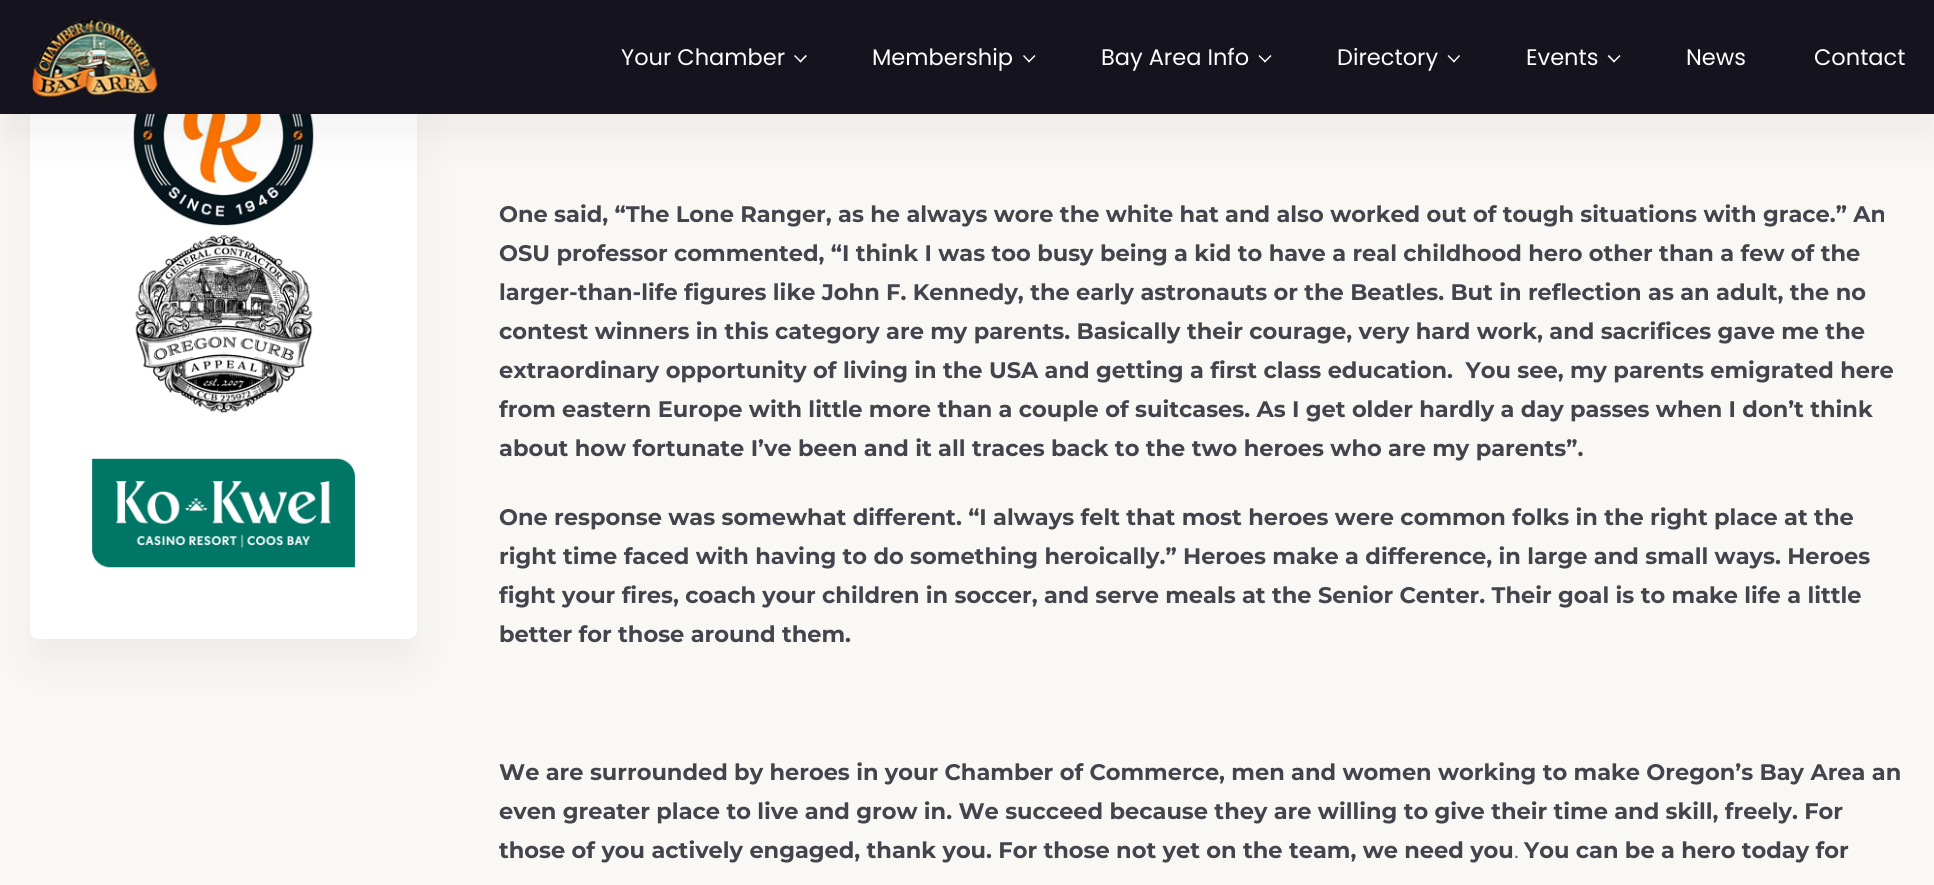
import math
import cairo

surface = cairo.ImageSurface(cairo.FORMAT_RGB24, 1934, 885)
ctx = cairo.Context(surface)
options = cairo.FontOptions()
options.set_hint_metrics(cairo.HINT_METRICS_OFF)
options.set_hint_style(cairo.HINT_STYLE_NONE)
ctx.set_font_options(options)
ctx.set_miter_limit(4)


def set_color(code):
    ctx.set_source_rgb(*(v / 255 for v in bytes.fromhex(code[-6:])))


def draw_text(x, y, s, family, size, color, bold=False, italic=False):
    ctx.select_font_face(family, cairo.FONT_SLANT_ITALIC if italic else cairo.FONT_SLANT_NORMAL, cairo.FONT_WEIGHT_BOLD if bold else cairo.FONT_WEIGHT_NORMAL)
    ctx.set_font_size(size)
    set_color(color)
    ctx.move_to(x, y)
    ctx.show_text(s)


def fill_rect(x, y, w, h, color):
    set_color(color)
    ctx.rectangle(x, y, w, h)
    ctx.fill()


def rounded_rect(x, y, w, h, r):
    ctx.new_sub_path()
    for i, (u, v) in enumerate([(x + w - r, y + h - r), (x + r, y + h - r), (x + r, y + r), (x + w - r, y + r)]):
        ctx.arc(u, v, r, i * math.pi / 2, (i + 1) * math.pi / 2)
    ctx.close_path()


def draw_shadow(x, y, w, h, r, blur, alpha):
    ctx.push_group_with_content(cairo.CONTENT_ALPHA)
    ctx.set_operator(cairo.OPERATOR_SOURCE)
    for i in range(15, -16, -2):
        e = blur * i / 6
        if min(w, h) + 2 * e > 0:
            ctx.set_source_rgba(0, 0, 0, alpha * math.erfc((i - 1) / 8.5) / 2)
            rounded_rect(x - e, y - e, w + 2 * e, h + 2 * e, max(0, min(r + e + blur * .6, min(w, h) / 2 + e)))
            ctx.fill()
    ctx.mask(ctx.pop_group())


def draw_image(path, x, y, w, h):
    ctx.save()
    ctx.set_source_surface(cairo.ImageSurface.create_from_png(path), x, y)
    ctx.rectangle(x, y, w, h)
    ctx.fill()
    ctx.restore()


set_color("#f9f8f5")
ctx.paint()
set_color("#000000")
draw_shadow(30, -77, 387, 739, 9, 22.5, 0.05)
set_color("#ffffff")
rounded_rect(30, -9, 387, 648, 9)
ctx.fill()
draw_image("assets/img2.png", 133, 114, 181, 112)
set_color("#000000")
draw_shadow(0, 23, 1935, 114, 0, 22.5, 0.05)
fill_rect(0, 0, 1934, 114, "#15131e")
draw_image("assets/img1.png", 32, 19, 126, 78)
draw_text(621, 65, "Your Chamber", "Poppins", 22.5, "#ffffff")
ctx.new_path()
ctx.move_to(805.5, 55)
ctx.line_to(807, 56)
ctx.line_to(800.5, 62.5)
ctx.line_to(799.5, 61.5)
ctx.close_path()
ctx.fill()
ctx.new_path()
ctx.move_to(795, 55)
ctx.line_to(801.5, 61.5)
ctx.line_to(800.5, 62.5)
ctx.line_to(794, 56)
ctx.close_path()
ctx.fill()
draw_text(872, 65, "Membership", "Poppins", 22.5, "#ffffff")
ctx.new_path()
ctx.move_to(1034.5, 55)
ctx.line_to(1035.5, 56)
ctx.line_to(1029, 62.5)
ctx.line_to(1028, 61.5)
ctx.close_path()
ctx.fill()
ctx.new_path()
ctx.move_to(1024, 55)
ctx.line_to(1030, 61.5)
ctx.line_to(1029, 62.5)
ctx.line_to(1023, 56)
ctx.close_path()
ctx.fill()
draw_text(1101, 65, "Bay Area Info", "Poppins", 22.5, "#ffffff")
ctx.new_path()
ctx.move_to(1270.5, 55)
ctx.line_to(1271.5, 56)
ctx.line_to(1265, 62.5)
ctx.line_to(1264, 61.5)
ctx.close_path()
ctx.fill()
ctx.new_path()
ctx.move_to(1259.5, 55)
ctx.line_to(1266, 61.5)
ctx.line_to(1265, 62.5)
ctx.line_to(1258.5, 56)
ctx.close_path()
ctx.fill()
draw_text(1337, 65, "Directory", "Poppins", 22.5, "#ffffff")
ctx.new_path()
ctx.move_to(1459, 55)
ctx.line_to(1460, 56)
ctx.line_to(1454, 62.5)
ctx.line_to(1453, 61.5)
ctx.close_path()
ctx.fill()
ctx.new_path()
ctx.move_to(1448.5, 55)
ctx.line_to(1455, 61.5)
ctx.line_to(1454, 62.5)
ctx.line_to(1447.5, 56)
ctx.close_path()
ctx.fill()
draw_text(1526, 65, "Events", "Poppins", 22.5, "#ffffff")
ctx.new_path()
ctx.move_to(1619.5, 55)
ctx.line_to(1620.5, 56)
ctx.line_to(1614, 62.5)
ctx.line_to(1613, 61.5)
ctx.close_path()
ctx.fill()
ctx.new_path()
ctx.move_to(1609, 55)
ctx.line_to(1615, 61.5)
ctx.line_to(1614, 62.5)
ctx.line_to(1607.5, 56)
ctx.close_path()
ctx.fill()
draw_text(1686, 65, "News", "Poppins", 22.5, "#ffffff")
draw_text(1814, 65, "Contact", "Poppins", 22.5, "#ffffff")
draw_image("assets/img3.png", 135, 234, 178, 180)
draw_image("assets/img4.png", 92, 458, 263, 110)
draw_text(499, 222, "One said, “The Lone Ranger, as he always wore the white hat and also worked out of tough situations with grace.” An", "Montserrat", 22.5, "#44444d", bold=True)
draw_text(499, 261, "OSU professor commented, “I think I was too busy being a kid to have a real childhood hero other than a few of the", "Montserrat", 22.5, "#44444d", bold=True)
draw_text(499, 300, "larger-than-life figures like John F. Kennedy, the early astronauts or the Beatles. But in reflection as an adult, the no", "Montserrat", 22.5, "#44444d", bold=True)
draw_text(499, 339, "contest winners in this category are my parents. Basically their courage, very hard work, and sacrifices gave me the", "Montserrat", 22.5, "#44444d", bold=True)
draw_text(499, 378, "extraordinary opportunity of living in the USA and getting a first class education.  You see, my parents emigrated here", "Montserrat", 22.5, "#44444d", bold=True)
draw_text(499, 417, "from eastern Europe with little more than a couple of suitcases. As I get older hardly a day passes when I don’t think", "Montserrat", 22.5, "#44444d", bold=True)
draw_text(499, 456, "about how fortunate I’ve been and it all traces back to the two heroes who are my parents”.", "Montserrat", 22.5, "#44444d", bold=True)
draw_text(499, 525, "One response was somewhat different. “I always felt that most heroes were common folks in the right place at the", "Montserrat", 22.5, "#44444d", bold=True)
draw_text(499, 564, "right time faced with having to do something heroically.” Heroes make a difference, in large and small ways. Heroes", "Montserrat", 22.5, "#44444d", bold=True)
draw_text(499, 603, "fight your fires, coach your children in soccer, and serve meals at the Senior Center. Their goal is to make life a little", "Montserrat", 22.5, "#44444d", bold=True)
draw_text(499, 642, "better for those around them.", "Montserrat", 22.5, "#44444d", bold=True)
draw_text(499, 780, "We are surrounded by heroes in your Chamber of Commerce, men and women working to make Oregon’s Bay Area an", "Montserrat", 22.5, "#44444d", bold=True)
draw_text(499, 819, "even greater place to live and grow in. We succeed because they are willing to give their time and skill, freely. For", "Montserrat", 22.5, "#44444d", bold=True)
draw_text(499, 858, "those of you actively engaged, thank you. For those not yet on the team, we need you", "Montserrat", 22.5, "#44444d", bold=True)
draw_text(1514, 858, ".", "Montserrat", 22.5, "#61616b")
draw_text(1524, 858, "You can be a hero today for", "Montserrat", 22.5, "#44444d", bold=True)
surface.write_to_png("output.png")
